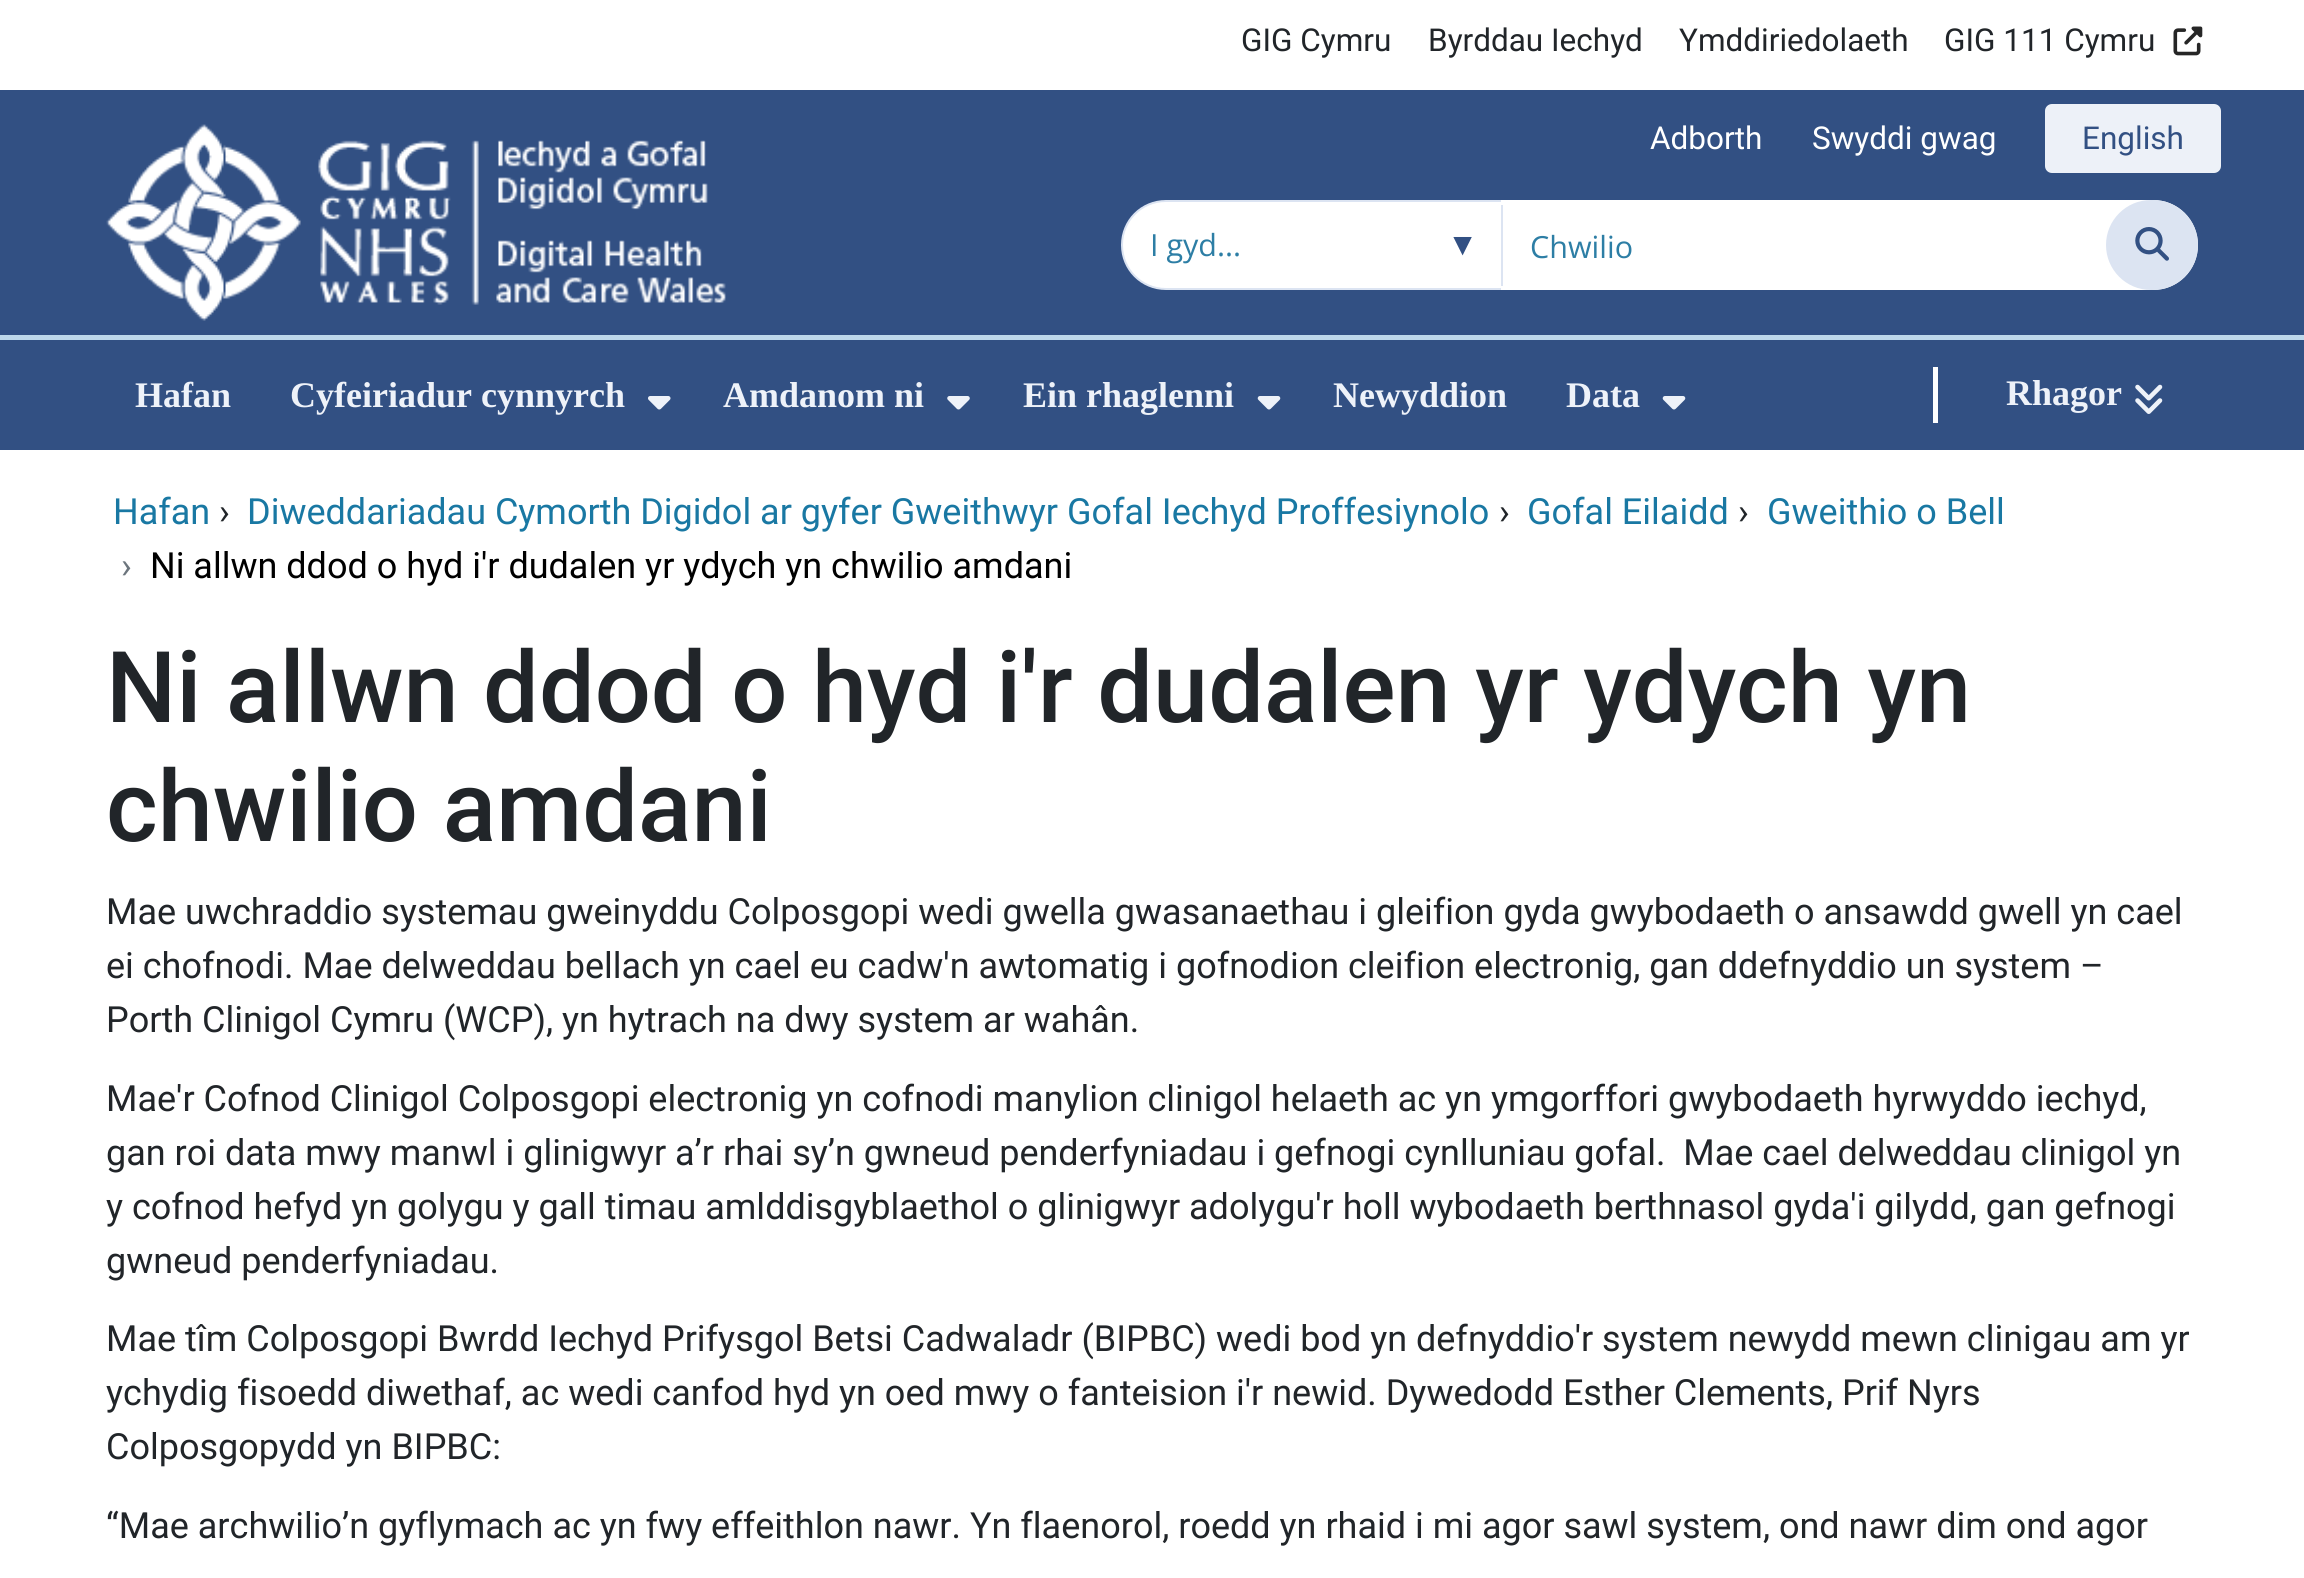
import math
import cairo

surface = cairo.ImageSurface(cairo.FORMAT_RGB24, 2304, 1578)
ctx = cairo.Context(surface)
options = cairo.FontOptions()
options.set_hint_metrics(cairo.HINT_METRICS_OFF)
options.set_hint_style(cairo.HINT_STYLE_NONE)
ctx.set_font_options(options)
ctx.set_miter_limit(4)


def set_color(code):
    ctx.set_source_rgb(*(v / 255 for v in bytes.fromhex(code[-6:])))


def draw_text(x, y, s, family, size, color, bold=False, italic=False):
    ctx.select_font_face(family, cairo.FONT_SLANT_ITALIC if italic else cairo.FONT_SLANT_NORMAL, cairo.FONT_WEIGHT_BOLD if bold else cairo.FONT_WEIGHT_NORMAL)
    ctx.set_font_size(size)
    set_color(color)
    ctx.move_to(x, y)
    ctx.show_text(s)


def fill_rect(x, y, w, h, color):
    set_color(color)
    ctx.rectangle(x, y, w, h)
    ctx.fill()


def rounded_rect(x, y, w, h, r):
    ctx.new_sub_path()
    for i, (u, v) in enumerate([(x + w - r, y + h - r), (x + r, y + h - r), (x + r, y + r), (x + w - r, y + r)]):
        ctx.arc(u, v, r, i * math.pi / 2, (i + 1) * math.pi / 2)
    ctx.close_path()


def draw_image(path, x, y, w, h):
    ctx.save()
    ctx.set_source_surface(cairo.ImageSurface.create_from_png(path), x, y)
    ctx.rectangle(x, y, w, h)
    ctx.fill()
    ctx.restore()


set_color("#ffffff")
ctx.paint()
fill_rect(0, 90, 2304, 245, "#325083")
fill_rect(0, 335, 2304, 5, "#bdd7ea")
draw_text(1241, 51, "GIG Cymru", "Roboto", 31.5, "#212529")
draw_text(1428, 51, "Byrddau Iechyd", "Roboto", 31.5, "#212529")
draw_text(1679, 51, "Ymddiriedolaeth", "Roboto", 31.5, "#212529")
draw_text(1944, 51, "GIG 111 Cymru", "Roboto", 31.5, "#212529")
draw_image("assets/img1.png", 2173, 26, 30, 30)
draw_text(1650, 149, "Adborth", "Roboto", 31.5, "#ffffff")
draw_text(1812, 149, "Swyddi gwag", "Roboto", 31.5, "#ffffff")
set_color("#edf1f8")
rounded_rect(2045, 104, 176, 69, 7)
ctx.fill()
draw_text(2082, 149, "English", "Roboto", 31.5, "#325083")
draw_image("assets/img2.png", 106, 124, 620, 197)
set_color("#ffffff")
ctx.new_path()
ctx.move_to(1166, 201)
ctx.line_to(1502, 201)
ctx.line_to(1502, 289)
ctx.line_to(1166, 289)
ctx.curve_to(1141.5, 289, 1122, 269.5, 1122, 245)
ctx.curve_to(1122, 220.5, 1141.5, 201, 1166, 201)
ctx.close_path()
ctx.fill_preserve()
set_color("#dce4f2")
ctx.stroke()
draw_text(1150, 256, "I gyd...", "Open Sans", 30.5, "#2d7ea5")
draw_text(1447, 255, "▼", "Liberation Sans", 31.5, "#325083")
set_color("#ffffff")
ctx.new_path()
ctx.move_to(1501, 200)
ctx.line_to(2153, 200)
ctx.curve_to(2178, 200, 2198, 220, 2198, 245)
ctx.curve_to(2198, 270, 2178, 290, 2153, 290)
ctx.line_to(1501, 290)
ctx.close_path()
ctx.fill()
fill_rect(1501, 205, 2, 81, "#dce4f2")
draw_text(1530, 258, "Chwilio", "Open Sans", 30.5, "#2d7ea5")
set_color("#dce4f2")
rounded_rect(2107, 201, 90, 88, 44)
ctx.fill_preserve()
ctx.stroke()
draw_image("assets/img3.png", 2135, 227, 34, 34)
fill_rect(0, 340, 2304, 110, "#325083")
draw_text(135, 407, "Hafan", "Liberation Serif", 36, "#eef2f9", bold=True)
draw_text(290, 407, "Cyfeiriadur cynnyrch", "Liberation Serif", 36, "#eef2f9", bold=True)
draw_image("assets/img4.png", 648, 396, 23, 14)
draw_text(723, 407, "Amdanom ni", "Liberation Serif", 36, "#eef2f9", bold=True)
draw_image("assets/img5.png", 947, 396, 23, 14)
draw_text(1023, 407, "Ein rhaglenni", "Liberation Serif", 36, "#eef2f9", bold=True)
draw_image("assets/img6.png", 1257, 396, 24, 14)
draw_text(1333, 407, "Newyddion", "Liberation Serif", 36, "#eef2f9", bold=True)
draw_text(1566, 407, "Data", "Liberation Serif", 36, "#eef2f9", bold=True)
draw_image("assets/img6.png", 1662, 396, 24, 14)
fill_rect(1933, 367, 5, 56, "#ffffff")
draw_text(2006, 405, "Rhagor", "Liberation Serif", 36, "#eef2f9", bold=True)
draw_image("assets/img7.png", 2135, 384, 28, 30)
draw_text(113, 524, "Hafan", "Roboto", 36, "#1978a3")
draw_text(219, 524, "›", "Roboto", 36, "#212529")
draw_text(247, 524, "Diweddariadau Cymorth Digidol ar gyfer Gweithwyr Gofal Iechyd Proffesiynolo", "Roboto", 36, "#1978a3")
draw_text(1499, 524, "›", "Roboto", 36, "#212529")
draw_text(1527, 524, "Gofal Eilaidd", "Roboto", 36, "#1978a3")
draw_text(1738, 524, "›", "Roboto", 36, "#212529")
draw_text(1767, 524, "Gweithio o Bell", "Roboto", 36, "#1978a3")
draw_text(121, 578, "›", "Roboto", 36, "#6c757d")
draw_text(150, 578, "Ni allwn ddod o hyd i'r dudalen yr ydych yn chwilio amdani", "Roboto", 36, "#000000")
draw_text(106, 722, "Ni allwn ddod o hyd i'r dudalen yr ydych yn", "Roboto Medium", 99, "#212529")
draw_text(106, 841, "chwilio amdani", "Roboto Medium", 99, "#212529")
draw_text(106, 924, "Mae uwchraddio systemau gweinyddu Colposgopi wedi gwella gwasanaethau i gleifion gyda gwybodaeth o ansawdd gwell yn cael", "Roboto", 36, "#212529")
draw_text(106, 978, "ei chofnodi. Mae delweddau bellach yn cael eu cadw'n awtomatig i gofnodion cleifion electronig, gan ddefnyddio un system –", "Roboto", 36, "#212529")
draw_text(106, 1032, "Porth Clinigol Cymru (WCP), yn hytrach na dwy system ar wahân.", "Roboto", 36, "#212529")
draw_text(106, 1111, "Mae'r Cofnod Clinigol Colposgopi electronig yn cofnodi manylion clinigol helaeth ac yn ymgorffori gwybodaeth hyrwyddo iechyd,", "Roboto", 36, "#212529")
draw_text(106, 1165, "gan roi data mwy manwl i glinigwyr a’r rhai sy’n gwneud penderfyniadau i gefnogi cynlluniau gofal.  Mae cael delweddau clinigol yn", "Roboto", 36, "#212529")
draw_text(106, 1219, "y cofnod hefyd yn golygu y gall timau amlddisgyblaethol o glinigwyr adolygu'r holl wybodaeth berthnasol gyda'i gilydd, gan gefnogi", "Roboto", 36, "#212529")
draw_text(106, 1273, "gwneud penderfyniadau.", "Roboto", 36, "#212529")
draw_text(106, 1351, "Mae tîm Colposgopi Bwrdd Iechyd Prifysgol Betsi Cadwaladr (BIPBC) wedi bod yn defnyddio'r system newydd mewn clinigau am yr", "Roboto", 36, "#212529")
draw_text(106, 1405, "ychydig fisoedd diwethaf, ac wedi canfod hyd yn oed mwy o fanteision i'r newid. Dywedodd Esther Clements, Prif Nyrs", "Roboto", 36, "#212529")
draw_text(106, 1459, "Colposgopydd yn BIPBC:", "Roboto", 36, "#212529")
draw_text(106, 1538, "“Mae archwilio’n gyflymach ac yn fwy effeithlon nawr. Yn flaenorol, roedd yn rhaid i mi agor sawl system, ond nawr dim ond agor", "Roboto", 36, "#212529")
surface.write_to_png("output.png")
